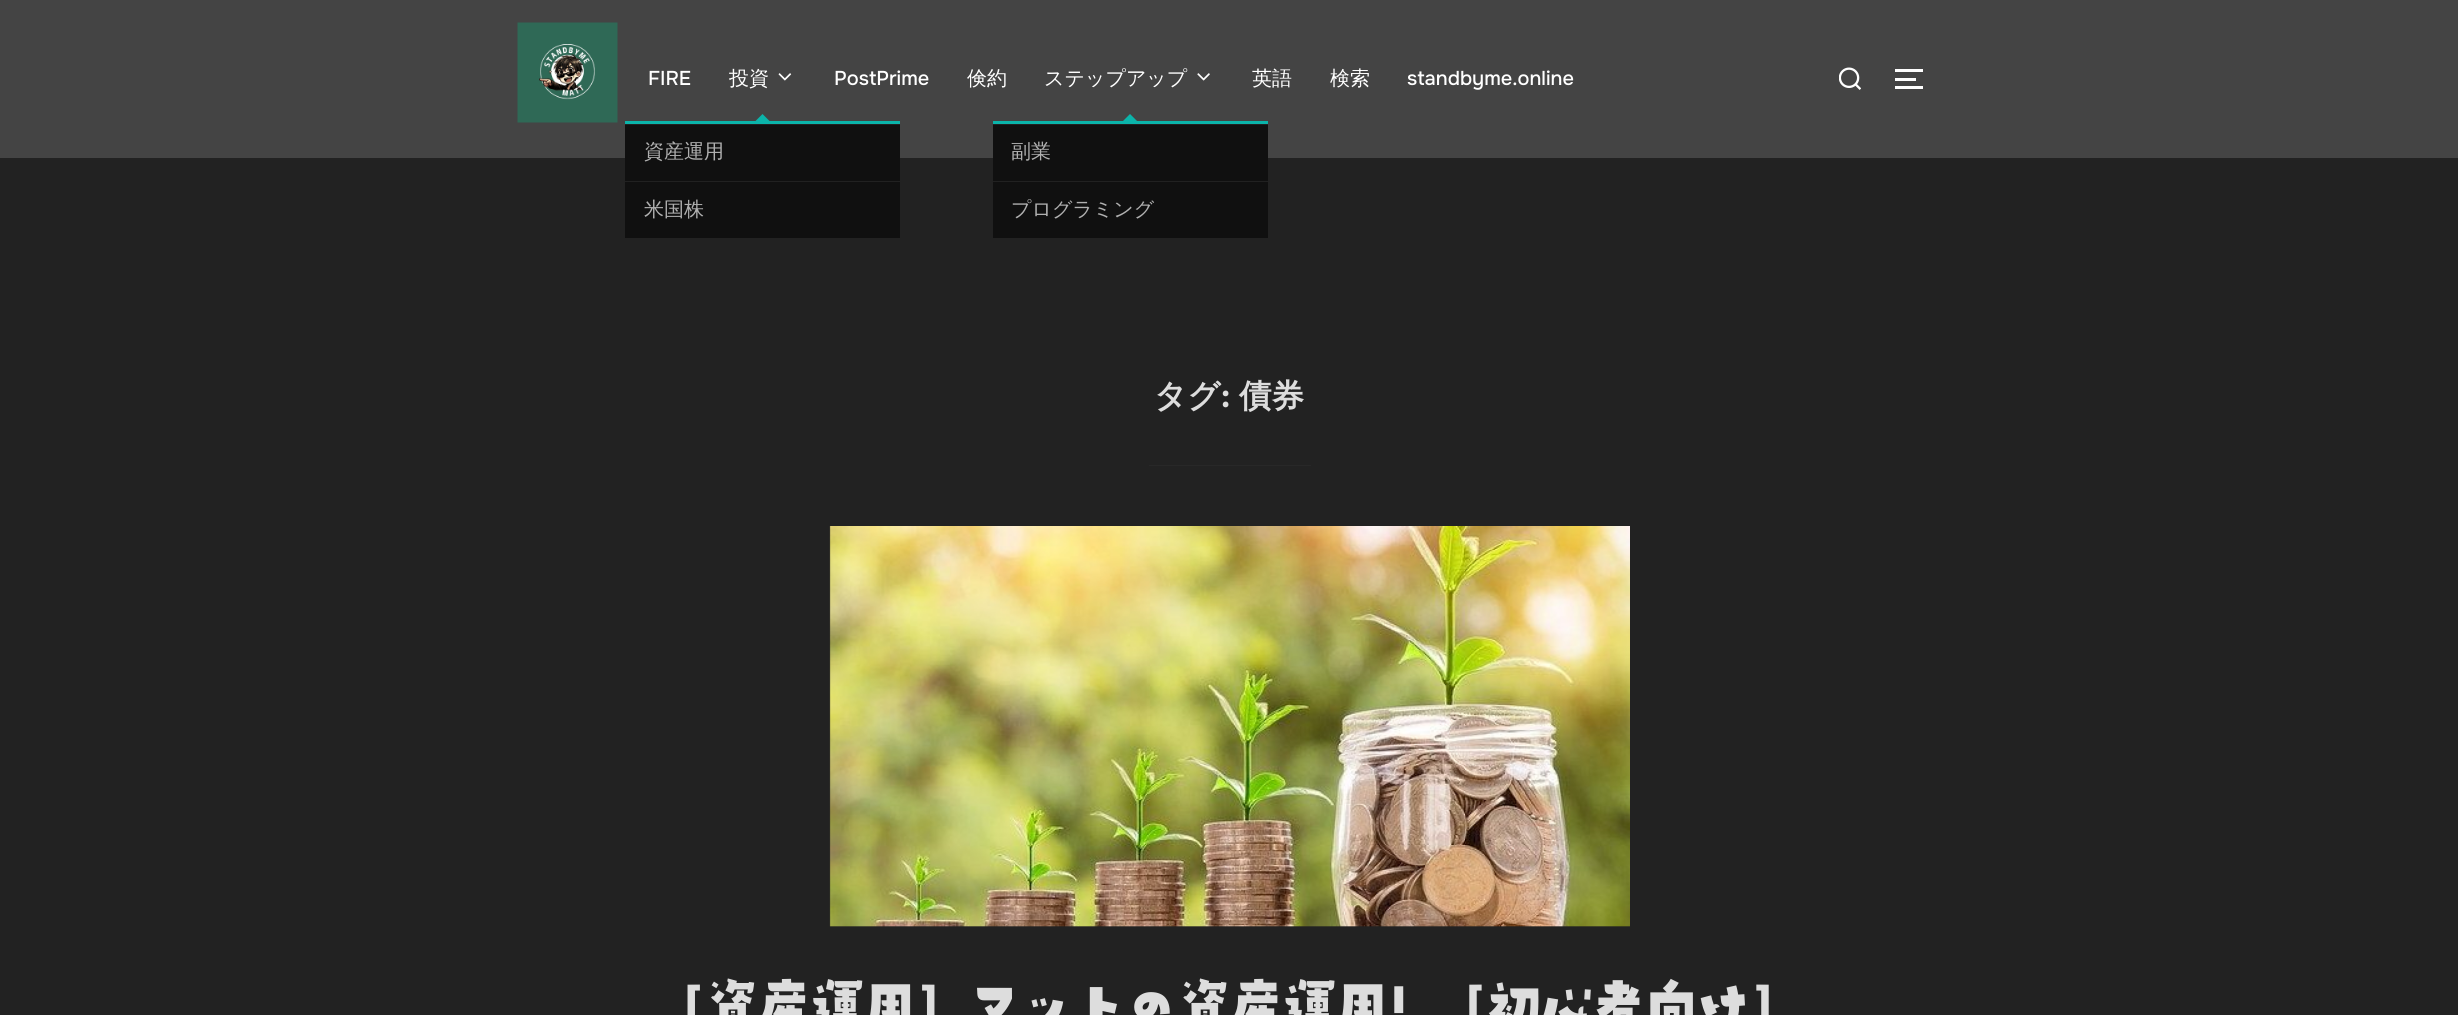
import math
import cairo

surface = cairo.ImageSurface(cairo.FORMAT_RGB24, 2458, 1015)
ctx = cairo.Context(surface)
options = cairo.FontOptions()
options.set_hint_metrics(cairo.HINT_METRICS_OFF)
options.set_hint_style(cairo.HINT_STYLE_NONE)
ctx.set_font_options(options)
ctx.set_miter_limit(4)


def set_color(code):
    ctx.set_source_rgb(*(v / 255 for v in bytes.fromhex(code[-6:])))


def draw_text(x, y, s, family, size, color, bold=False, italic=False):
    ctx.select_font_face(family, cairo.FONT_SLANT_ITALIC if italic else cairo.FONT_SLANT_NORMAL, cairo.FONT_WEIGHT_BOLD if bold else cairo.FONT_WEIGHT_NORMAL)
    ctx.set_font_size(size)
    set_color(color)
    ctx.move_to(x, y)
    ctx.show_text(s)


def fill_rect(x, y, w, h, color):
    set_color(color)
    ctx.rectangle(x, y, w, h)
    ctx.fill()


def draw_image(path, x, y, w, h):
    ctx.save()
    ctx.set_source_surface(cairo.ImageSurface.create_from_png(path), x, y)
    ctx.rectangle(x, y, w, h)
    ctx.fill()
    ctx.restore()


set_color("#222222")
ctx.paint()
fill_rect(0, 0, 2458, 158, "#444444")
draw_image("assets/img1.png", 517, 22, 101, 101)
draw_text(729, 85, "投資", "WenQuanYi Zen Hei Medium", 20, "#ffffff")
draw_image("assets/img2.png", 778, 73, 14, 8)
fill_rect(625, 125, 275, 113, "#101010")
fill_rect(625, 121, 275, 3, "#0bb4aa")
ctx.new_path()
ctx.move_to(772.5, 124)
ctx.line_to(752.5, 124)
ctx.line_to(762.5, 114)
ctx.close_path()
ctx.fill()
fill_rect(625, 124, 275, 1, "#212121")
draw_text(644, 158, "資産運用", "WenQuanYi Zen Hei Medium", 20, "#b0b0b0")
fill_rect(625, 181, 275, 1, "#212121")
draw_text(644, 216, "米国株", "WenQuanYi Zen Hei Medium", 20, "#b0b0b0")
draw_text(967, 85, "倹約", "WenQuanYi Zen Hei Medium", 20, "#ffffff")
draw_text(1044, 85, "ステップアップ", "WenQuanYi Zen Hei Medium", 20, "#ffffff")
draw_image("assets/img3.png", 1197, 73, 13, 8)
fill_rect(993, 125, 275, 113, "#101010")
fill_rect(993, 121, 275, 3, "#0bb4aa")
ctx.new_path()
ctx.move_to(1140, 124)
ctx.line_to(1120, 124)
ctx.line_to(1130, 114)
ctx.close_path()
ctx.fill()
fill_rect(993, 124, 275, 1, "#212121")
draw_text(1011, 158, "副業", "WenQuanYi Zen Hei Medium", 20, "#b0b0b0")
fill_rect(993, 181, 275, 1, "#212121")
draw_text(1011, 216, "プログラミング", "WenQuanYi Zen Hei Medium", 20, "#b0b0b0")
draw_text(1252, 85, "英語", "WenQuanYi Zen Hei Medium", 20, "#ffffff")
draw_text(1330, 85, "検索", "WenQuanYi Zen Hei Medium", 20, "#ffffff")
draw_text(648, 85, "FIRE", "Onest Medium", 20, "#ffffff")
draw_text(834, 85, "PostPrime", "Onest Medium", 20, "#ffffff")
draw_text(1407, 85, "standbyme.online", "Onest Medium", 20, "#ffffff")
draw_image("assets/img4.png", 1839, 67, 22, 23)
fill_rect(1895, 69, 28, 3, "#ffffff")
fill_rect(1895, 78, 21, 3, "#ffffff")
fill_rect(1895, 86, 28, 3, "#ffffff")
draw_text(1154, 407, "タグ", "WenQuanYi Zen Hei", 32.5, "#dddddd", bold=True)
draw_text(1221, 407, ":", "Onest", 32.5, "#dddddd", bold=True)
draw_text(1239, 407, "債券", "WenQuanYi Zen Hei", 32.5, "#dddddd", bold=True)
fill_rect(1149, 465, 162, 1, "#282828")
draw_image("assets/img5.png", 829, 526, 801, 401)
draw_text(680, 1024, "[資産運用] マットの資産運用!　[初心者向け]", "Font", 52.5, "#dddddd")
surface.write_to_png("output.png")
